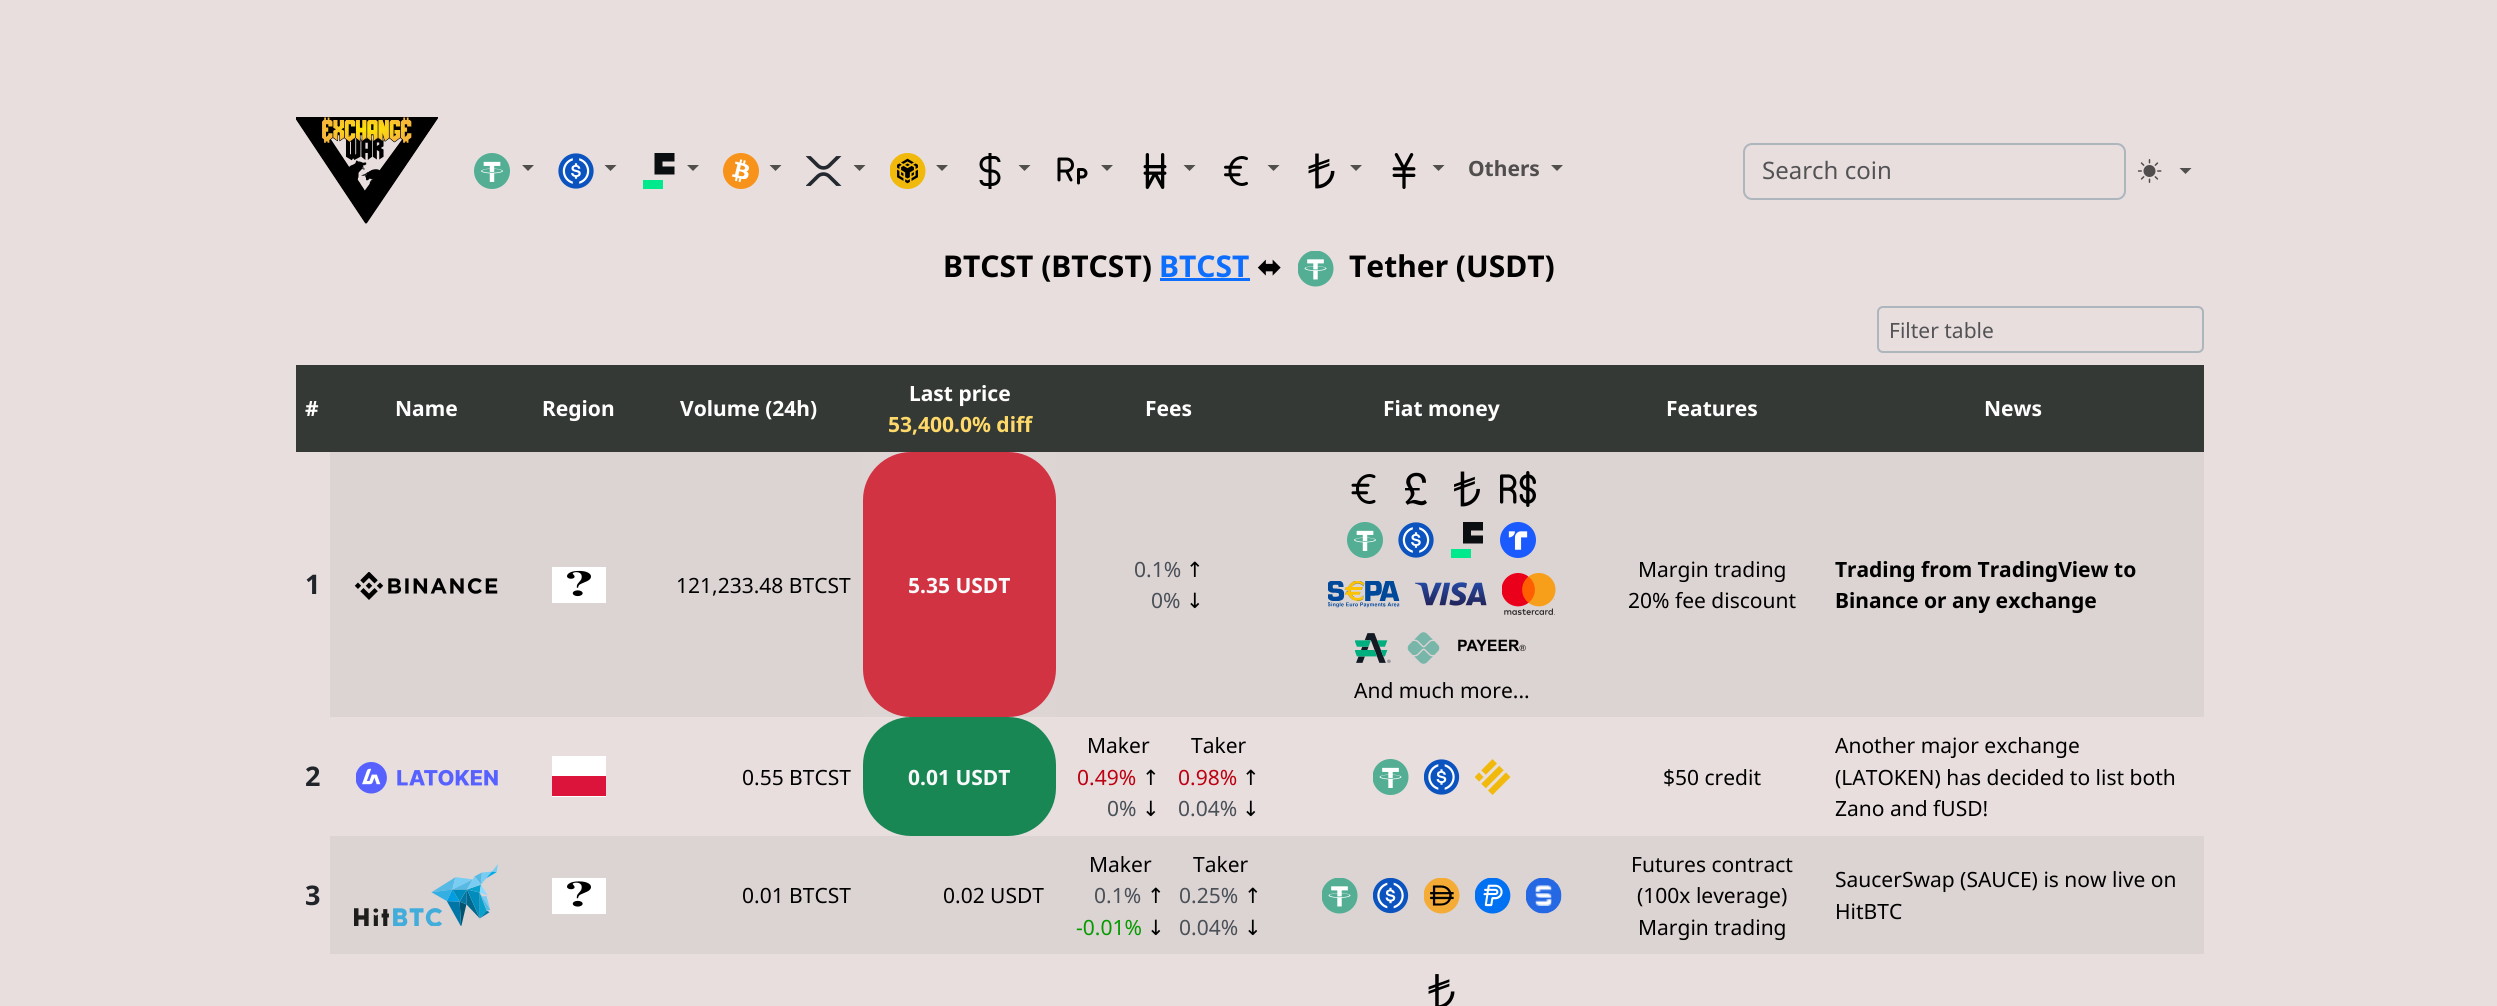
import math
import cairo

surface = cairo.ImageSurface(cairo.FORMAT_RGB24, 2497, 1006)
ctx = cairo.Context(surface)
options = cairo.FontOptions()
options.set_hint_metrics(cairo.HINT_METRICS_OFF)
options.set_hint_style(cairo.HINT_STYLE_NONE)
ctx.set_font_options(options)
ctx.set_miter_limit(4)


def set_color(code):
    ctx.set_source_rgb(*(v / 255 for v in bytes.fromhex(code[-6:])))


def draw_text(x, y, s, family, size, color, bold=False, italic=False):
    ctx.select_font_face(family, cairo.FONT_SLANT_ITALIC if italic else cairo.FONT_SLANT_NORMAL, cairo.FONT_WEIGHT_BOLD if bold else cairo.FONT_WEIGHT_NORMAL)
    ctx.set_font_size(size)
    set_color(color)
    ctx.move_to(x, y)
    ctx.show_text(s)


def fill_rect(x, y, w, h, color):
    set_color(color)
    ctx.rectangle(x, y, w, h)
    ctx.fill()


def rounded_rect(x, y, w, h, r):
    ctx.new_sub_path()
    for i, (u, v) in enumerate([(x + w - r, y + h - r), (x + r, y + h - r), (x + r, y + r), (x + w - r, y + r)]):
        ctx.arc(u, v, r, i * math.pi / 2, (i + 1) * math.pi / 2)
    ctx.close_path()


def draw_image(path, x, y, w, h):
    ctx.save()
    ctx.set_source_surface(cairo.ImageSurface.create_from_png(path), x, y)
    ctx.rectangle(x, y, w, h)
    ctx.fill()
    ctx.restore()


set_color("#e8dede")
ctx.paint()
draw_image("assets/img1.png", 296, 117, 142, 107)
draw_image("assets/img2.png", 474, 153, 36, 36)
set_color("#514e4e")
ctx.new_path()
ctx.move_to(522, 165)
ctx.line_to(534, 165)
ctx.line_to(528, 171)
ctx.close_path()
ctx.fill()
draw_image("assets/img3.png", 558, 153, 36, 36)
ctx.new_path()
ctx.move_to(604.5, 165)
ctx.line_to(616.5, 165)
ctx.line_to(610.5, 171)
ctx.close_path()
ctx.fill()
set_color("#0b0e11")
ctx.new_path()
ctx.move_to(674.5, 153)
ctx.line_to(674.5, 161.5)
ctx.line_to(662.5, 161.5)
ctx.line_to(662.5, 166.5)
ctx.line_to(674.5, 166.5)
ctx.line_to(674.5, 174.5)
ctx.line_to(654.5, 174.5)
ctx.line_to(654.5, 153)
ctx.close_path()
ctx.fill()
set_color("#514e4e")
ctx.new_path()
ctx.move_to(687, 165)
ctx.line_to(699, 165)
ctx.line_to(693, 171)
ctx.close_path()
ctx.fill()
fill_rect(643, 180, 20, 9, "#00e98d")
draw_image("assets/img4.png", 723, 153, 36, 36)
set_color("#514e4e")
ctx.new_path()
ctx.move_to(769.5, 165)
ctx.line_to(781.5, 165)
ctx.line_to(775.5, 171)
ctx.close_path()
ctx.fill()
draw_image("assets/img5.png", 806, 156, 36, 30)
ctx.new_path()
ctx.move_to(853.5, 165)
ctx.line_to(865.5, 165)
ctx.line_to(859.5, 171)
ctx.close_path()
ctx.fill()
draw_image("assets/img6.png", 890, 153, 36, 36)
ctx.new_path()
ctx.move_to(936, 165)
ctx.line_to(948, 165)
ctx.line_to(942, 171)
ctx.close_path()
ctx.fill()
draw_image("assets/img7.png", 979, 153, 22, 36)
ctx.new_path()
ctx.move_to(1018.5, 165)
ctx.line_to(1030.5, 165)
ctx.line_to(1024.5, 171)
ctx.close_path()
ctx.fill()
draw_image("assets/img8.png", 1057, 157, 31, 28)
ctx.new_path()
ctx.move_to(1101, 165)
ctx.line_to(1113, 165)
ctx.line_to(1107, 171)
ctx.close_path()
ctx.fill()
draw_image("assets/img9.png", 1143, 153, 24, 36)
ctx.new_path()
ctx.move_to(1183.5, 165)
ctx.line_to(1195.5, 165)
ctx.line_to(1189.5, 171)
ctx.close_path()
ctx.fill()
draw_image("assets/img10.png", 1224, 156, 24, 30)
ctx.new_path()
ctx.move_to(1267.5, 165)
ctx.line_to(1279.5, 165)
ctx.line_to(1273.5, 171)
ctx.close_path()
ctx.fill()
draw_image("assets/img11.png", 1308, 153, 27, 36)
ctx.new_path()
ctx.move_to(1350, 165)
ctx.line_to(1362, 165)
ctx.line_to(1356, 171)
ctx.close_path()
ctx.fill()
draw_image("assets/img12.png", 1392, 153, 24, 36)
ctx.new_path()
ctx.move_to(1432.5, 165)
ctx.line_to(1444.5, 165)
ctx.line_to(1438.5, 171)
ctx.close_path()
ctx.fill()
draw_text(1468, 176, "Others", "Noto Sans", 21, "#514e4e", bold=True)
ctx.new_path()
ctx.move_to(1551, 165)
ctx.line_to(1563, 165)
ctx.line_to(1557, 171)
ctx.close_path()
ctx.fill()
rounded_rect(1744, 144, 381, 55, 8)
set_color("#adb5bd")
ctx.stroke()
draw_text(1762, 179, "Search coin", "Noto Sans", 24, "#535356")
draw_image("assets/img13.png", 2138, 159, 24, 24)
set_color("#514e4e")
ctx.new_path()
ctx.move_to(2179.5, 168)
ctx.line_to(2191.5, 168)
ctx.line_to(2185.5, 174)
ctx.close_path()
ctx.fill()
draw_text(943, 277, "BTCST (BTCST)", "Noto Sans", 30, "#000000", bold=True)
draw_text(1159, 277, "BTCST", "Noto Sans", 30, "#0d6efd", bold=True)
fill_rect(1160, 278, 90, 3, "#0d6efd")
draw_text(1257, 277, "⬌", "DejaVu Sans", 30, "#000000", bold=True)
draw_image("assets/img14.png", 1298, 251, 36, 36)
draw_text(1349, 277, "Tether (USDT)", "Noto Sans", 30, "#000000", bold=True)
rounded_rect(1878, 307, 325, 45, 5)
set_color("#adb5bd")
ctx.stroke()
draw_text(1889, 338, "Filter table", "Noto Sans", 21, "#535356")
fill_rect(296, 365, 1908, 87, "#353935")
draw_text(305, 416, "#", "Noto Sans", 21, "#ffffff", bold=True)
draw_text(395, 416, "Name", "Noto Sans", 21, "#ffffff", bold=True)
draw_text(542, 416, "Region", "Noto Sans", 21, "#ffffff", bold=True)
draw_text(680, 416, "Volume (24h)", "Noto Sans", 21, "#ffffff", bold=True)
draw_text(909, 401, "Last price", "Noto Sans", 21, "#ffffff", bold=True)
draw_text(888, 432, "53,400.0% diff", "Noto Sans", 21, "#ffda6a", bold=True)
draw_text(1145, 416, "Fees", "Noto Sans", 21, "#ffffff", bold=True)
draw_text(1383, 416, "Fiat money", "Noto Sans", 21, "#ffffff", bold=True)
draw_text(1666, 416, "Features", "Noto Sans", 21, "#ffffff", bold=True)
draw_text(1984, 416, "News", "Noto Sans", 21, "#ffffff", bold=True)
fill_rect(330, 452, 533, 265, "#dcd3d3")
draw_image("assets/img15.png", 354, 572, 144, 28)
fill_rect(1056, 452, 1148, 265, "#dcd3d3")
draw_text(1134, 577, "0.1%", "Noto Sans", 21, "#495057")
draw_text(1186, 577, "↑", "DejaVu Sans", 21, "#000000")
draw_text(1151, 608, "0%", "Noto Sans", 21, "#495057")
draw_text(1186, 608, "↓", "DejaVu Sans", 21, "#000000")
draw_text(1638, 577, "Margin trading", "Noto Sans", 21, "#000000")
draw_text(1628, 608, "20% fee discount", "Noto Sans", 21, "#000000")
draw_text(1835, 577, "Trading from TradingView to", "Noto Sans", 21, "#000000", bold=True)
draw_text(1835, 608, "Binance or any exchange", "Noto Sans", 21, "#000000", bold=True)
draw_text(305, 594, "1", "Noto Sans", 27, "#212529", bold=True)
draw_image("assets/img16.png", 552, 567, 54, 36)
draw_text(676, 593, "121,233.48 BTCST", "Noto Sans", 21, "#000000")
set_color("#dc3545")
rounded_rect(863, 452, 193, 265, 48)
ctx.fill()
ctx.set_source_rgba(0, 0, 0, 0.05)
ctx.rectangle(863, 452, 193, 265)
ctx.fill()
draw_text(908, 593, "5.35 USDT", "Noto Sans", 21, "#f8f9fa", bold=True)
draw_image("assets/img17.png", 1351, 474, 25, 30)
draw_image("assets/img18.png", 1405, 472, 22, 34)
draw_image("assets/img19.png", 1454, 471, 26, 36)
draw_image("assets/img20.png", 1500, 471, 36, 36)
draw_image("assets/img21.png", 1347, 522, 36, 36)
draw_image("assets/img22.png", 1398, 522, 36, 36)
fill_rect(1451, 549, 20, 9, "#00e98d")
set_color("#0b0e11")
ctx.new_path()
ctx.move_to(1483, 522)
ctx.line_to(1483, 530.5)
ctx.line_to(1471, 530.5)
ctx.line_to(1471, 535.5)
ctx.line_to(1483, 535.5)
ctx.line_to(1483, 543.5)
ctx.line_to(1463, 543.5)
ctx.line_to(1463, 522)
ctx.close_path()
ctx.fill()
draw_image("assets/img23.png", 1500, 522, 36, 36)
draw_image("assets/img24.png", 1328, 581, 72, 27)
draw_image("assets/img25.png", 1415, 582, 72, 24)
draw_image("assets/img26.png", 1502, 573, 54, 42)
draw_image("assets/img27.png", 1355, 633, 36, 30)
draw_image("assets/img28.png", 1407, 632, 33, 32)
draw_image("assets/img29.png", 1458, 639, 68, 13)
draw_text(1354, 698, "And much more...", "Noto Sans", 21, "#000000")
draw_text(305, 786, "2", "Noto Sans", 27, "#212529", bold=True)
draw_image("assets/img30.png", 356, 762, 142, 32)
fill_rect(552, 756, 54, 41, "#ffffff")
fill_rect(552, 776, 54, 20, "#dc143c")
draw_text(742, 785, "0.55 BTCST", "Noto Sans", 21, "#000000")
set_color("#198754")
rounded_rect(863, 717, 193, 119, 48)
ctx.fill()
draw_text(908, 785, "0.01 USDT", "Noto Sans", 21, "#f8f9fa", bold=True)
draw_text(1087, 753, "Maker", "Noto Sans", 21, "#000000")
draw_text(1077, 785, "0.49%", "Noto Sans", 21, "#bd0012")
draw_text(1142, 785, "↑", "DejaVu Sans", 21, "#000000")
draw_text(1107, 816, "0%", "Noto Sans", 21, "#495057")
draw_text(1142, 816, "↓", "DejaVu Sans", 21, "#000000")
draw_text(1191, 753, "Taker", "Noto Sans", 21, "#000000")
draw_text(1178, 785, "0.98%", "Noto Sans", 21, "#bd0012")
draw_text(1242, 785, "↑", "DejaVu Sans", 21, "#000000")
draw_text(1178, 816, "0.04%", "Noto Sans", 21, "#495057")
draw_text(1242, 816, "↓", "DejaVu Sans", 21, "#000000")
draw_image("assets/img31.png", 1373, 759, 36, 36)
draw_image("assets/img32.png", 1424, 759, 36, 36)
draw_image("assets/img33.png", 1475, 759, 36, 36)
draw_text(1663, 785, "$50 credit", "Noto Sans", 21, "#000000")
draw_text(1835, 753, "Another major exchange", "Noto Sans", 21, "#000000")
draw_text(1835, 785, "(LATOKEN) has decided to list both", "Noto Sans", 21, "#000000")
draw_text(1835, 816, "Zano and fUSD!", "Noto Sans", 21, "#000000")
fill_rect(330, 836, 1874, 118, "#dcd3d3")
draw_image("assets/img34.png", 354, 864, 144, 62)
draw_text(305, 905, "3", "Noto Sans", 27, "#212529", bold=True)
draw_image("assets/img35.png", 552, 878, 54, 36)
draw_text(742, 903, "0.01 BTCST", "Noto Sans", 21, "#000000")
draw_text(943, 903, "0.02 USDT", "Noto Sans", 21, "#000000")
draw_text(1089, 872, "Maker", "Noto Sans", 21, "#000000")
draw_text(1094, 903, "0.1%", "Noto Sans", 21, "#495057")
draw_text(1147, 903, "↑", "DejaVu Sans", 21, "#000000")
draw_text(1076, 935, "-0.01%", "Noto Sans", 21, "#059b00")
draw_text(1147, 935, "↓", "DejaVu Sans", 21, "#000000")
draw_text(1193, 872, "Taker", "Noto Sans", 21, "#000000")
draw_text(1179, 903, "0.25%", "Noto Sans", 21, "#495057")
draw_text(1244, 903, "↑", "DejaVu Sans", 21, "#000000")
draw_text(1179, 935, "0.04%", "Noto Sans", 21, "#495057")
draw_text(1244, 935, "↓", "DejaVu Sans", 21, "#000000")
draw_image("assets/img36.png", 1322, 878, 36, 36)
draw_image("assets/img37.png", 1373, 878, 36, 36)
draw_image("assets/img38.png", 1424, 878, 36, 36)
draw_image("assets/img39.png", 1475, 878, 36, 36)
draw_image("assets/img40.png", 1526, 878, 36, 36)
draw_text(1631, 872, "Futures contract", "Noto Sans", 21, "#000000")
draw_text(1637, 903, "(100x leverage)", "Noto Sans", 21, "#000000")
draw_text(1638, 935, "Margin trading", "Noto Sans", 21, "#000000")
draw_text(1835, 887, "SaucerSwap (SAUCE) is now live on", "Noto Sans", 21, "#000000")
draw_text(1835, 919, "HitBTC", "Noto Sans", 21, "#000000")
draw_image("assets/img41.png", 1428, 974, 27, 32)
surface.write_to_png("output.png")
